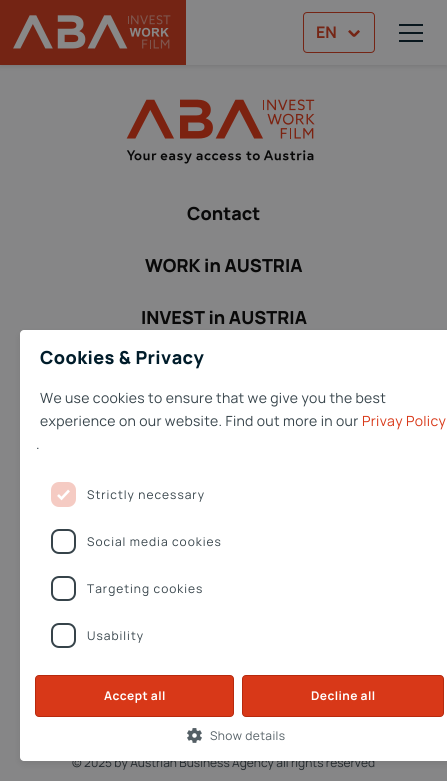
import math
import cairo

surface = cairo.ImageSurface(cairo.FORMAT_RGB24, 447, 781)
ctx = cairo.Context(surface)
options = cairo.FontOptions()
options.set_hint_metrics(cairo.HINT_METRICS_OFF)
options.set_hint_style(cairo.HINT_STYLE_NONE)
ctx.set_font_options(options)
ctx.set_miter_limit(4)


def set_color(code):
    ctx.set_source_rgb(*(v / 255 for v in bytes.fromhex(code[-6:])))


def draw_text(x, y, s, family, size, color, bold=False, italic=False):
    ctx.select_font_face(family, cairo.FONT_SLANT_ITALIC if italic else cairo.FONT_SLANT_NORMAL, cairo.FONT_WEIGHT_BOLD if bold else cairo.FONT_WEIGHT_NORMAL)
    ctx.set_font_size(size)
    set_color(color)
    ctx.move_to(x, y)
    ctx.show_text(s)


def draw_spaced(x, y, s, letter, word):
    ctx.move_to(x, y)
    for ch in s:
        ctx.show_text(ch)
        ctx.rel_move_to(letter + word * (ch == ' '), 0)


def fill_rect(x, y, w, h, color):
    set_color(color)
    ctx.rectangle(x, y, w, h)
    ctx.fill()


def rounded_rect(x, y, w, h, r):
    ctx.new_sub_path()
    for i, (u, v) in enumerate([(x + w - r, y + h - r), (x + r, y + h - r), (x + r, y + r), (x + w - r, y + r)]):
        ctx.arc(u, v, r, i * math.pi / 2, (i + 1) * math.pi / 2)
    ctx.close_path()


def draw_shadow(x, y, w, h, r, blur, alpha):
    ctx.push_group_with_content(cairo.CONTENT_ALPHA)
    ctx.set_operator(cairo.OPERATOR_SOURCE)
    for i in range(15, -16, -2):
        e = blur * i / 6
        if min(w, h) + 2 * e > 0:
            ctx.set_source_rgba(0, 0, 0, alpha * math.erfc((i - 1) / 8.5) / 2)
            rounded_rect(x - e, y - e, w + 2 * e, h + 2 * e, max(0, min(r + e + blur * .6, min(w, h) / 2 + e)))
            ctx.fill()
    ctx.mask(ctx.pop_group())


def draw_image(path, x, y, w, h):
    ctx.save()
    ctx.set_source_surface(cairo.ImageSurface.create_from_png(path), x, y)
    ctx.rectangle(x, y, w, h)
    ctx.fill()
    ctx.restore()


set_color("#868687")
ctx.paint()
set_color("#090909")
draw_shadow(0, 2, 447, 65, 0, 2, 0.1)
fill_rect(186, 0, 261, 65, "#868687")
draw_image("assets/img1.png", 0, 0, 186, 65)
rounded_rect(303.5, 12.5, 71, 40, 3.5)
set_color("#752515")
ctx.set_line_width(1)
ctx.stroke()
draw_text(316, 38, "EN", "Manrope", 16, "#752515", bold=True)
draw_image("assets/img2.png", 348, 30, 12, 7)
fill_rect(399, 24, 24, 2, "#09171e")
fill_rect(399, 32, 24, 2, "#09171e")
fill_rect(399, 40, 24, 2, "#09171e")
draw_image("assets/img3.png", 126, 99, 189, 65)
draw_text(187, 220, "Contact", "Manrope ExtraBold", 18, "#090909")
draw_text(145, 272, "WORK in AUSTRIA", "Manrope ExtraBold", 18, "#090909")
draw_text(141, 324, "INVEST in AUSTRIA", "Manrope ExtraBold", 18, "#090909")
draw_text(72, 767, "© 2025 by Austrian Business Agency all rights reserved", "Manrope", 12, "#242a2e")
set_color("#000000")
draw_shadow(20, 333, 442, 431, 4, 3.5, 0.08)
set_color("#ffffff")
rounded_rect(20, 330, 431, 431, 4)
ctx.fill()
ctx.select_font_face("Manrope ExtraBold")
ctx.set_font_size(18)
set_color("#001c2a")
draw_spaced(40, 364, "Cookies & Privacy", 0.4, 0)
ctx.select_font_face("Manrope")
ctx.set_font_size(14)
set_color("#36434a")
draw_spaced(40, 403, "We use cookies to ensure that we give you the best", 0.3, 0)
draw_spaced(40, 426, "experience on our website. Find out more in our", 0.3, 0)
set_color("#d83818")
draw_spaced(362, 426, "Privay Policy", 0.3, 0)
set_color("#36434a")
draw_spaced(36, 449, ".", 0.3, 0)
set_color("#f5cbc3")
rounded_rect(51, 482, 25, 25, 8)
ctx.fill()
ctx.new_path()
ctx.move_to(58, 495)
ctx.line_to(61.5, 498.5)
ctx.line_to(69, 490.5)
set_color("#ffffff")
ctx.set_line_width(2.6)
ctx.stroke()
ctx.set_font_size(12)
set_color("#36434a")
draw_spaced(87, 499, "Strictly necessary", 1, 0)
rounded_rect(52, 530, 23, 23, 7)
ctx.set_line_width(2)
ctx.stroke()
draw_spaced(87, 546, "Social media cookies", 1, 0)
rounded_rect(52, 577, 23, 23, 7)
ctx.stroke()
draw_spaced(87, 593, "Targeting cookies", 1, 0)
rounded_rect(52, 624, 23, 23, 7)
ctx.stroke()
draw_spaced(87, 640, "Usability", 1, 0)
set_color("#d83818")
rounded_rect(35.5, 675.5, 198, 41, 3.5)
ctx.fill_preserve()
set_color("#b7290d")
ctx.set_line_width(1)
ctx.stroke()
ctx.select_font_face("Manrope", cairo.FONT_SLANT_NORMAL, cairo.FONT_WEIGHT_BOLD)
set_color("#ffffff")
draw_spaced(104, 700, "Accept all", 0.4, 0)
set_color("#d83818")
rounded_rect(242.5, 675.5, 201, 41, 3.5)
ctx.fill_preserve()
set_color("#b7290d")
ctx.stroke()
set_color("#ffffff")
draw_spaced(311, 700, "Decline all", 0.4, 0)
draw_image("assets/img4.png", 187, 728, 15, 15)
ctx.select_font_face("Manrope")
set_color("#545f65")
draw_spaced(210, 740, "Show details", 0.4, 0)
surface.write_to_png("output.png")
